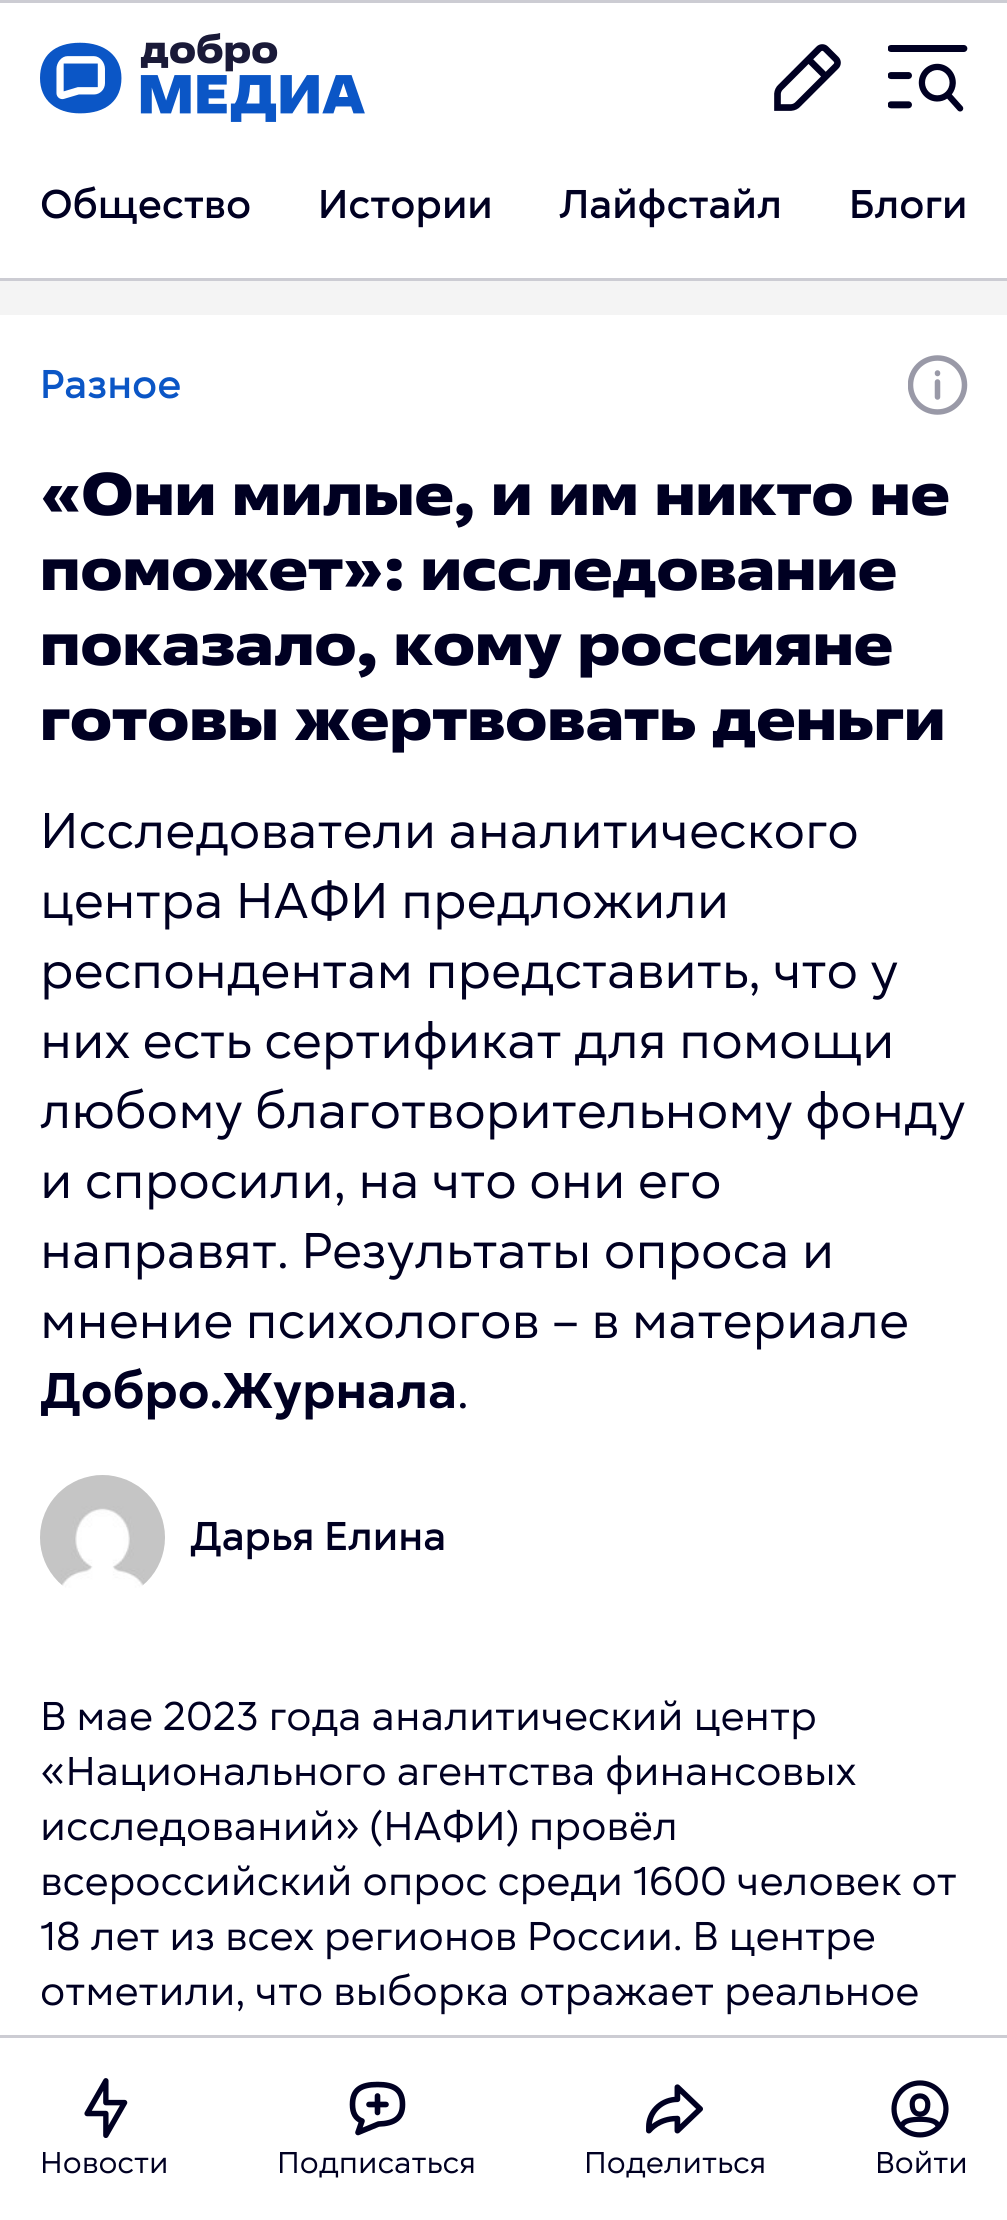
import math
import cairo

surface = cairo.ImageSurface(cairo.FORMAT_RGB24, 1007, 2220)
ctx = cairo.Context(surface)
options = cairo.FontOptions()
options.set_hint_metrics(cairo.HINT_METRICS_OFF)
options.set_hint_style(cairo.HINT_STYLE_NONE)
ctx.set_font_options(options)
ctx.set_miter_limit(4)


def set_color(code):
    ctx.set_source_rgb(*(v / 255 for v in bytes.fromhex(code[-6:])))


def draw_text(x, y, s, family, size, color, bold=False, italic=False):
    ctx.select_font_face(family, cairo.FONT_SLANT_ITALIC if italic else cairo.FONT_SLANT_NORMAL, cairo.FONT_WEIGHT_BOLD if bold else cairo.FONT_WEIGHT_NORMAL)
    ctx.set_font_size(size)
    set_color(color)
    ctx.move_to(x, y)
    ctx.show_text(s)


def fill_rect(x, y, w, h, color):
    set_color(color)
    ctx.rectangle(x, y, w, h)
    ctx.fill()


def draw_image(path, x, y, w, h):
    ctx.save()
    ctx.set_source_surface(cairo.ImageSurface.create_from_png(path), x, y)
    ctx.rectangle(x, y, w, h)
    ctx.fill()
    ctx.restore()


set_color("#f4f4f4")
ctx.paint()
fill_rect(0, 3, 1007, 275, "#ffffff")
fill_rect(0, 0, 1007, 3, "#ccccd3")
fill_rect(0, 278, 1007, 3, "#ccccd3")
draw_image("assets/img1.png", 40, 33, 325, 89)
draw_image("assets/img2.png", 774, 44, 67, 67)
draw_image("assets/img3.png", 888, 45, 80, 67)
draw_text(40, 218, "Общество", "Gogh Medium", 40, "#000022")
draw_text(318, 218, "Истории", "Gogh Medium", 40, "#000022")
draw_text(559, 218, "Лайфстайл", "Gogh Medium", 40, "#000022")
draw_text(849, 218, "Блоги", "Gogh Medium", 40, "#000022")
fill_rect(0, 315, 1007, 1720, "#ffffff")
draw_text(40, 398, "Разное", "Gogh Medium", 40, "#0b56c6")
ctx.save()
ctx.rectangle(908, 355, 60, 60)
ctx.clip()
ctx.new_path()
ctx.move_to(937.5, 382)
ctx.line_to(937.5, 397)
ctx.move_to(937.5, 412)
ctx.curve_to(922.5, 412, 910.5, 400, 910.5, 385)
ctx.curve_to(910.5, 370, 922.5, 358, 937.5, 358)
ctx.curve_to(952.5, 358, 964.5, 370, 964.5, 385)
ctx.curve_to(964.5, 400, 952.5, 412, 937.5, 412)
ctx.close_path()
ctx.move_to(937.5, 373)
ctx.line_to(937.5, 373.5)
ctx.close_path()
set_color("#9999a7")
ctx.set_line_width(5.5)
ctx.set_line_cap(cairo.LINE_CAP_ROUND)
ctx.set_line_join(cairo.LINE_JOIN_ROUND)
ctx.stroke()
ctx.restore()
draw_text(40, 515, "«Они милые, и им никто не", "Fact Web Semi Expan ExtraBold", 60, "#000022")
draw_text(40, 590, "поможет»: исследование", "Fact Web Semi Expan ExtraBold", 60, "#000022")
draw_text(40, 665, "показало, кому россияне", "Fact Web Semi Expan ExtraBold", 60, "#000022")
draw_text(40, 740, "готовы жертвовать деньги", "Fact Web Semi Expan ExtraBold", 60, "#000022")
draw_text(40, 848, "Исследователи аналитического", "Gogh", 50, "#000022")
draw_text(40, 918, "центра НАФИ предложили", "Gogh", 50, "#000022")
draw_text(40, 988, "респондентам представить, что у", "Gogh", 50, "#000022")
draw_text(40, 1058, "них есть сертификат для помощи", "Gogh", 50, "#000022")
draw_text(40, 1128, "любому благотворительному фонду", "Gogh", 50, "#000022")
draw_text(40, 1198, "и спросили, на что они его", "Gogh", 50, "#000022")
draw_text(40, 1268, "направят. Результаты опроса и", "Gogh", 50, "#000022")
draw_text(40, 1338, "мнение психологов – в материале", "Gogh", 50, "#000022")
draw_text(40, 1408, "Добро.Журнала", "Gogh", 50, "#000022", bold=True)
draw_text(457, 1408, ".", "Gogh", 50, "#000022")
draw_image("assets/img4.png", 40, 1475, 125, 113)
draw_text(190, 1550, "Дарья Елина", "Gogh Medium", 40, "#000022")
draw_text(40, 1730, "В мае 2023 года аналитический центр", "Gogh", 40, "#000022")
draw_text(40, 1785, "«Национального агентства финансовых", "Gogh", 40, "#000022")
draw_text(40, 1840, "исследований» (НАФИ) провёл", "Gogh", 40, "#000022")
draw_text(40, 1895, "всероссийский опрос среди 1600 человек от", "Gogh", 40, "#000022")
draw_text(40, 1950, "18 лет из всех регионов России. В центре", "Gogh", 40, "#000022")
draw_text(40, 2005, "отметили, что выборка отражает реальное", "Gogh", 40, "#000022")
fill_rect(0, 2038, 1007, 182, "#ffffff")
fill_rect(0, 2035, 1007, 3, "#ccccd3")
draw_image("assets/img5.png", 84, 2078, 44, 60)
draw_text(40, 2173, "Новости", "Gogh", 30, "#000022")
ctx.new_path()
ctx.move_to(377.5, 2096)
ctx.line_to(377.5, 2112.5)
ctx.move_to(386, 2104.5)
ctx.line_to(369, 2104.5)
ctx.move_to(378.5, 2124)
ctx.curve_to(394.5, 2123.5, 402.5, 2118, 402.5, 2104.5)
ctx.curve_to(402.5, 2090, 394.5, 2084.5, 377.5, 2084.5)
ctx.curve_to(360.5, 2084.5, 352.5, 2090, 352.5, 2104.5)
ctx.curve_to(352.5, 2113, 355.5, 2118.5, 362, 2121)
ctx.line_to(358, 2132.5)
ctx.close_path()
ctx.set_line_width(5.6)
ctx.set_line_cap(cairo.LINE_CAP_ROUND)
ctx.set_line_join(cairo.LINE_JOIN_ROUND)
ctx.stroke()
draw_text(277, 2173, "Подписаться", "Gogh", 30, "#000022")
draw_image("assets/img6.png", 646, 2084, 57, 50)
draw_text(584, 2173, "Поделиться", "Gogh", 30, "#000022")
draw_image("assets/img7.png", 891, 2080, 58, 58)
draw_text(875, 2173, "Войти", "Gogh", 30, "#000022")
surface.write_to_png("output.png")
